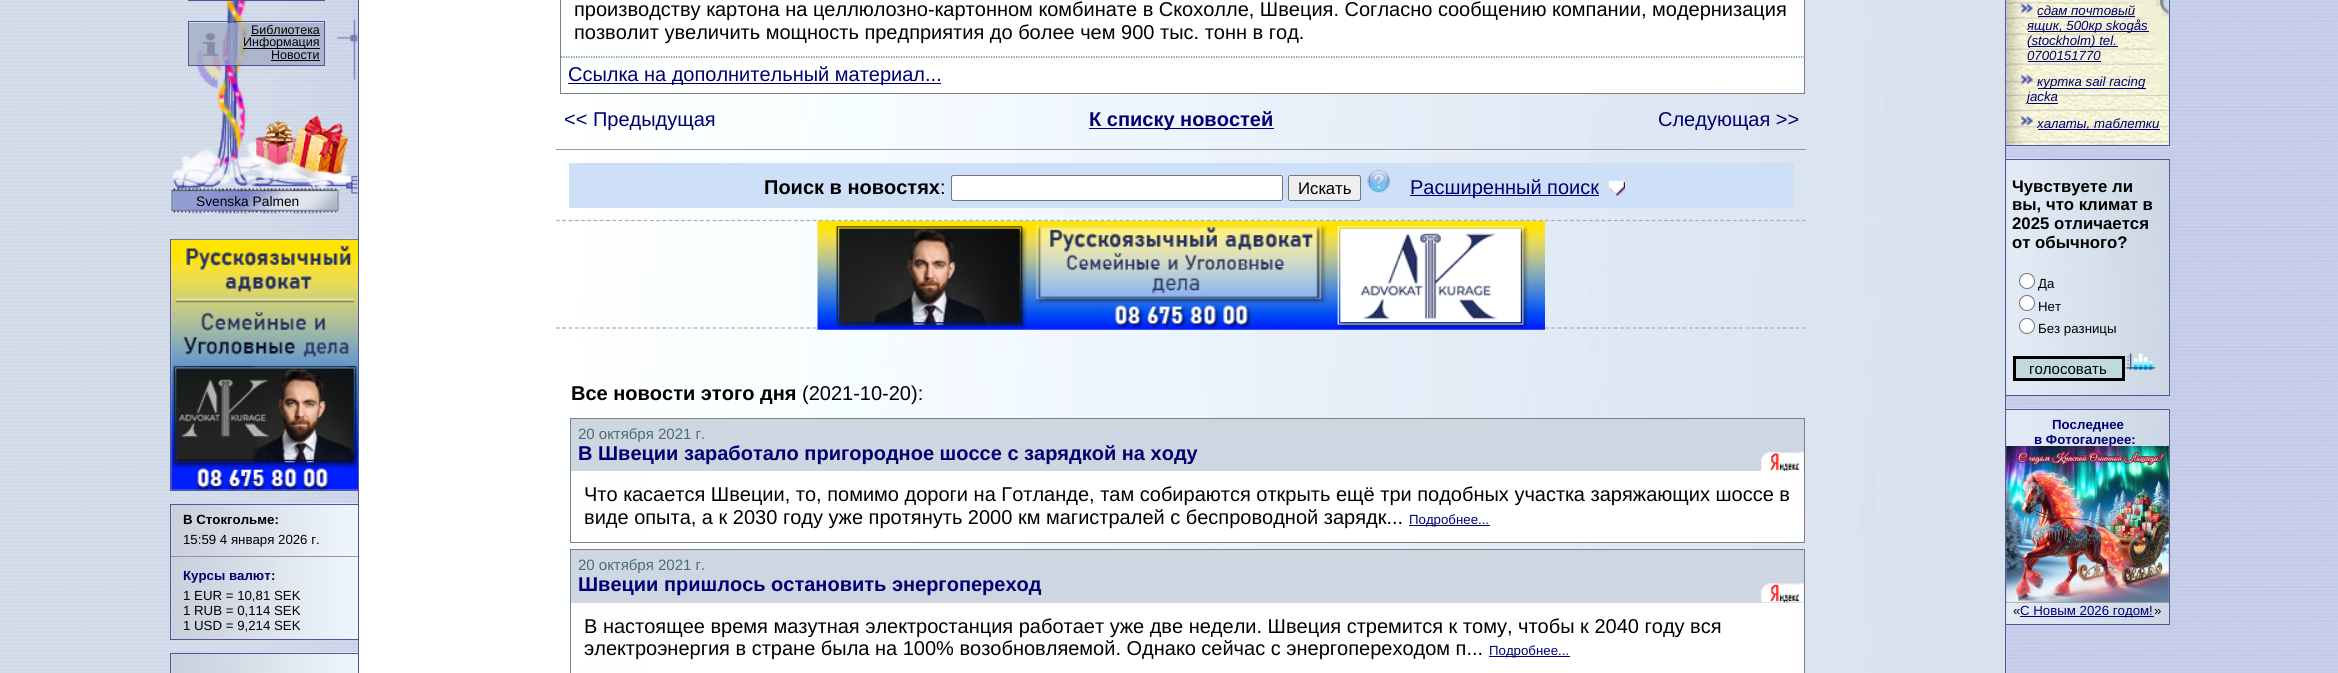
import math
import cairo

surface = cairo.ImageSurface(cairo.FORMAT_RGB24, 2338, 673)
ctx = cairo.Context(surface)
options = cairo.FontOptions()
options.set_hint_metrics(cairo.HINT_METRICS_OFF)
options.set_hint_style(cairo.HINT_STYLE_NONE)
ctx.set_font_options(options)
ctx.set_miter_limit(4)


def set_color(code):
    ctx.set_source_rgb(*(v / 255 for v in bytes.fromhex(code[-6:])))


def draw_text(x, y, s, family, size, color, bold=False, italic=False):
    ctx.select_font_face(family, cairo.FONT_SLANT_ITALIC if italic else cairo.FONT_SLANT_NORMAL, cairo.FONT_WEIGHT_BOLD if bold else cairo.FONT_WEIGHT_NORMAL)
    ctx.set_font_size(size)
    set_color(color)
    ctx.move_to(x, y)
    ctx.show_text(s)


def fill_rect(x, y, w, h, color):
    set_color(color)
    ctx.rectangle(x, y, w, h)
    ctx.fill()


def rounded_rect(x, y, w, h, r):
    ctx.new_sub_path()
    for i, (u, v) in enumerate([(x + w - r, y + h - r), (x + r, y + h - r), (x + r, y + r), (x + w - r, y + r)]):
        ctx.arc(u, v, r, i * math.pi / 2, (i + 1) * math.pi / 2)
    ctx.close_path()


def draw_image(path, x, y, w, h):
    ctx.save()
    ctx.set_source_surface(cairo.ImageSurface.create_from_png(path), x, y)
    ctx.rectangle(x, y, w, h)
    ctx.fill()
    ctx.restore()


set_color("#ffffff")
ctx.paint()
draw_image("assets/img1.png", 0, 0, 2338, 673)
draw_image("assets/img2.png", 171, 1, 187, 213)
ctx.rectangle(188.5, -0.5, 136, 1)
set_color("#50569a")
ctx.set_line_width(1)
ctx.stroke()
draw_image("assets/img3.png", 172, 1, 181, 189)
ctx.rectangle(188.5, 21.5, 136, 44)
ctx.stroke()
ctx.set_source_rgba(0.624, 0.663, 0.761, 0.75)
ctx.rectangle(189, 23, 135, 42)
ctx.fill()
draw_image("assets/img4.png", 202, 33, 17, 23)
draw_text(251, 34, "Библиотека", "Liberation Sans", 12.5, "#000000")
fill_rect(251, 35, 69, 1, "#000000")
fill_rect(243, 48, 77, 1, "#000000")
draw_text(243, 46, "Информация", "Liberation Sans", 12.5, "#000000")
draw_text(271, 59, "Новости", "Liberation Sans", 12.5, "#000000")
fill_rect(271, 60, 49, 1, "#000000")
draw_text(196, 206, "Svenska Palmen", "Liberation Sans", 13.75, "#000000")
draw_image("assets/img5.png", 170, 238, 188, 252)
fill_rect(170, 239, 189, 1, "#50569a")
fill_rect(170, 490, 189, 1, "#50569a")
fill_rect(170, 239, 1, 252, "#50569a")
draw_image("assets/img6.png", 171, 239, 187, 251)
draw_image("assets/img7.png", 170, 503, 188, 136)
fill_rect(170, 504, 189, 1, "#50569a")
fill_rect(170, 639, 189, 1, "#50569a")
fill_rect(170, 504, 1, 136, "#50569a")
draw_text(183, 524, "В Стокгольме:", "Liberation Sans", 13.25, "#000000", bold=True)
draw_text(183, 544, "15:59 4 января 2026 г.", "Liberation Sans", 13.25, "#000000")
fill_rect(171, 556, 188, 1, "#9696a5")
draw_text(183, 580, "Курсы валют", "Liberation Sans", 13.25, "#000072", bold=True)
draw_text(271, 580, ":", "Liberation Sans", 13.25, "#000000", bold=True)
draw_text(183, 600, "1 EUR = 10,81 SEK", "Liberation Sans", 13.25, "#000000")
draw_text(183, 615, "1 RUB = 0,114 SEK", "Liberation Sans", 13.25, "#000000")
draw_text(183, 630, "1 USD = 9,214 SEK", "Liberation Sans", 13.25, "#000000")
draw_image("assets/img8.png", 170, 652, 188, 21)
fill_rect(170, 653, 189, 1, "#50569a")
fill_rect(170, 653, 1, 20, "#50569a")
draw_image("assets/img9.png", 359, 0, 1646, 673)
ctx.rectangle(358.5, -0.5, 1647, 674)
ctx.stroke()
fill_rect(648, 0, 1156, 93, "#ffffff")
ctx.rectangle(560.5, -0.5, 1244, 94)
set_color("#808080")
ctx.stroke()
draw_text(574, 16, "производству картона на целлюлозно-картонном комбинате в Скохолле, Швеция. Согласно сообщению компании, модернизация", "Liberation Sans", 20, "#000000")
draw_text(574, 39, "позволит увеличить мощность предприятия до более чем 900 тыс. тонн в год.", "Liberation Sans", 20, "#000000")
ctx.new_path()
ctx.move_to(561, 57)
ctx.line_to(1804, 57)
set_color("#4b6c72")
ctx.set_line_width(1.2)
ctx.set_dash([1.25, 1.25])
ctx.stroke()
fill_rect(568, 83, 373, 1, "#000072")
draw_text(568, 81, "Ссылка на дополнительный материал...", "Liberation Sans", 20, "#000072")
draw_text(564, 126, "<< Предыдущая", "Liberation Sans", 20, "#000072")
fill_rect(1089, 128, 185, 1, "#000072")
draw_text(1089, 126, "К списку новостей", "Liberation Sans", 20, "#000072", bold=True)
draw_text(1658, 126, "Следующая >>", "Liberation Sans", 20, "#000072")
fill_rect(556, 149, 1250, 1, "#9696a5")
fill_rect(569, 163, 1225, 45, "#cee0f8")
draw_text(764, 194, "Поиск в новостях", "Liberation Sans", 20, "#000000", bold=True)
draw_text(940, 194, ":", "Liberation Sans", 20, "#000000")
set_color("#ffffff")
rounded_rect(951.5, 175.5, 331, 25, 2)
ctx.fill_preserve()
set_color("#767676")
ctx.set_line_width(1)
ctx.set_dash([])
ctx.stroke()
set_color("#efefef")
rounded_rect(1288.5, 175.5, 72, 25, 2)
ctx.fill_preserve()
set_color("#767676")
ctx.stroke()
draw_text(1298, 194, "Искать", "Liberation Sans", 16.75, "#000000")
draw_image("assets/img10.png", 1367, 169, 24, 24)
fill_rect(1410, 195, 189, 1, "#000072")
draw_text(1410, 194, "Расширенный поиск", "Liberation Sans", 20, "#000072")
draw_image("assets/img11.png", 1608, 181, 17, 15)
ctx.new_path()
ctx.move_to(556, 220.5)
ctx.line_to(1806, 220.5)
set_color("#a9abb5")
ctx.set_line_width(1.2)
ctx.set_dash([3.75, 2.51])
ctx.stroke()
ctx.new_path()
ctx.move_to(556, 328)
ctx.line_to(1806, 328)
ctx.stroke()
draw_image("assets/img12.png", 817, 221, 728, 109)
draw_text(571, 400, "Все новости этого дня", "Liberation Sans", 20, "#000000", bold=True)
draw_text(802, 400, "(2021-10-20):", "Liberation Sans", 20, "#000000")
fill_rect(646, 471, 1158, 71, "#ffffff")
ctx.rectangle(570.5, 418.5, 1234, 124)
set_color("#808080")
ctx.set_line_width(1)
ctx.set_dash([])
ctx.stroke()
fill_rect(571, 419, 1233, 52, "#ced6e2")
draw_text(578, 439, "20 октября 2021 г.", "Liberation Sans", 15, "#4b6c72")
draw_text(578, 460, "В Швеции заработало пригородное шоссе с зарядкой на ходу", "Liberation Sans", 20, "#000072", bold=True)
draw_image("assets/img13.png", 1761, 452, 43, 19)
draw_text(584, 501, "Что касается Швеции, то, помимо дороги на Готланде, там собираются открыть ещё три подобных участка заряжающих шоссе в", "Liberation Sans", 20, "#000000")
draw_text(584, 524, "виде опыта, а к 2030 году уже протянуть 2000 км магистралей с беспроводной зарядк...", "Liberation Sans", 20, "#000000")
fill_rect(1409, 525, 81, 1, "#000072")
draw_text(1409, 524, "Подробнее...", "Liberation Sans", 13.25, "#000072")
fill_rect(646, 603, 1158, 70, "#ffffff")
ctx.rectangle(570.5, 549.5, 1234, 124)
set_color("#808080")
ctx.stroke()
fill_rect(571, 550, 1233, 53, "#ced6e2")
draw_text(578, 570, "20 октября 2021 г.", "Liberation Sans", 15, "#4b6c72")
draw_text(578, 591, "Швеции пришлось остановить энергопереход", "Liberation Sans", 20, "#000072", bold=True)
draw_image("assets/img14.png", 1761, 583, 43, 20)
draw_text(584, 633, "В настоящее время мазутная электростанция работает уже две недели. Швеция стремится к тому, чтобы к 2040 году вся", "Liberation Sans", 20, "#000000")
draw_text(584, 655, "электроэнергия в стране была на 100% возобновляемой. Однако сейчас с энергопереходом п...", "Liberation Sans", 20, "#000000")
fill_rect(1489, 656, 81, 1, "#000072")
draw_text(1489, 655, "Подробнее...", "Liberation Sans", 13.25, "#000072")
draw_image("assets/img15.png", 2006, 0, 163, 145)
fill_rect(2169, 0, 1, 146, "#50569a")
fill_rect(2006, 145, 164, 1, "#50569a")
draw_image("assets/img16.png", 2006, 0, 163, 145)
draw_image("assets/img17.png", 2021, 3, 12, 11)
draw_text(2037, 15, "сдам почтовый", "Liberation Sans", 13.25, "#000072", italic=True)
fill_rect(2038, 16, 97, 1, "#000072")
fill_rect(2028, 31, 121, 1, "#000072")
draw_text(2027, 30, "ящик, 500кр skogås", "Liberation Sans", 13.25, "#000072", italic=True)
fill_rect(2028, 46, 90, 1, "#000072")
draw_text(2027, 45, "(stockholm) tel.", "Liberation Sans", 13.25, "#000072", italic=True)
draw_text(2027, 60, "0700151770", "Liberation Sans", 13.25, "#000072", italic=True)
fill_rect(2028, 61, 73, 1, "#000072")
draw_image("assets/img18.png", 2021, 74, 12, 11)
fill_rect(2038, 88, 108, 1, "#000072")
draw_text(2037, 86, "куртка sail racing", "Liberation Sans", 13.25, "#000072", italic=True)
fill_rect(2028, 103, 30, 1, "#000072")
draw_text(2027, 101, "jacka", "Liberation Sans", 13.25, "#000072", italic=True)
draw_image("assets/img19.png", 2021, 116, 12, 11)
fill_rect(2038, 129, 122, 1, "#000072")
draw_text(2037, 128, "халаты, таблетки", "Liberation Sans", 13.25, "#000072", italic=True)
draw_image("assets/img20.png", 2006, 158, 164, 237)
fill_rect(2006, 159, 164, 1, "#50569a")
fill_rect(2169, 159, 1, 237, "#50569a")
fill_rect(2006, 395, 164, 1, "#50569a")
draw_text(2012, 192, "Чувствуете ли", "Liberation Sans", 16.75, "#000000", bold=True)
draw_text(2012, 210, "вы, что климат в", "Liberation Sans", 16.75, "#000000", bold=True)
draw_text(2012, 229, "2025 отличается", "Liberation Sans", 16.75, "#000000", bold=True)
draw_text(2012, 248, "от обычного?", "Liberation Sans", 16.75, "#000000", bold=True)
set_color("#ffffff")
ctx.new_path()
ctx.arc(2027, 281, 7.5, 0, 2 * math.pi)
ctx.fill_preserve()
set_color("#767676")
ctx.stroke()
draw_text(2038, 288, "Да", "Liberation Sans", 13.25, "#000000")
set_color("#ffffff")
ctx.new_path()
ctx.arc(2027, 303, 7.5, 0, 2 * math.pi)
ctx.fill_preserve()
set_color("#767676")
ctx.stroke()
draw_text(2038, 311, "Нет", "Liberation Sans", 13.25, "#000000")
set_color("#ffffff")
ctx.new_path()
ctx.arc(2027, 326, 7.5, 0, 2 * math.pi)
ctx.fill_preserve()
set_color("#767676")
ctx.stroke()
draw_text(2038, 333, "Без разницы", "Liberation Sans", 13.25, "#000000")
set_color("#c1d8e1")
ctx.rectangle(2014.5, 357.5, 109, 22)
ctx.fill_preserve()
set_color("#000000")
ctx.set_line_width(3)
ctx.stroke()
draw_text(2029, 374, "голосовать", "Liberation Sans", 15, "#000000")
draw_image("assets/img21.png", 2126, 353, 30, 17)
draw_image("assets/img22.png", 2006, 408, 164, 216)
fill_rect(2006, 409, 164, 1, "#50569a")
fill_rect(2169, 409, 1, 216, "#50569a")
fill_rect(2006, 624, 164, 1, "#50569a")
draw_text(2052, 429, "Последнее", "Liberation Sans", 13.25, "#000072", bold=True)
fill_rect(2006, 446, 163, 157, "#aaa2a2")
draw_text(2034, 444, "в Фотогалерее:", "Liberation Sans", 13.25, "#000072", bold=True)
draw_image("assets/img23.png", 2006, 446, 163, 157)
draw_text(2013, 615, "«", "Liberation Sans", 13.25, "#000000")
fill_rect(2020, 616, 134, 1, "#000072")
draw_text(2020, 615, "С Новым 2026 годом!", "Liberation Sans", 13.25, "#000072")
draw_text(2154, 615, "»", "Liberation Sans", 13.25, "#000000")
surface.write_to_png("output.png")
